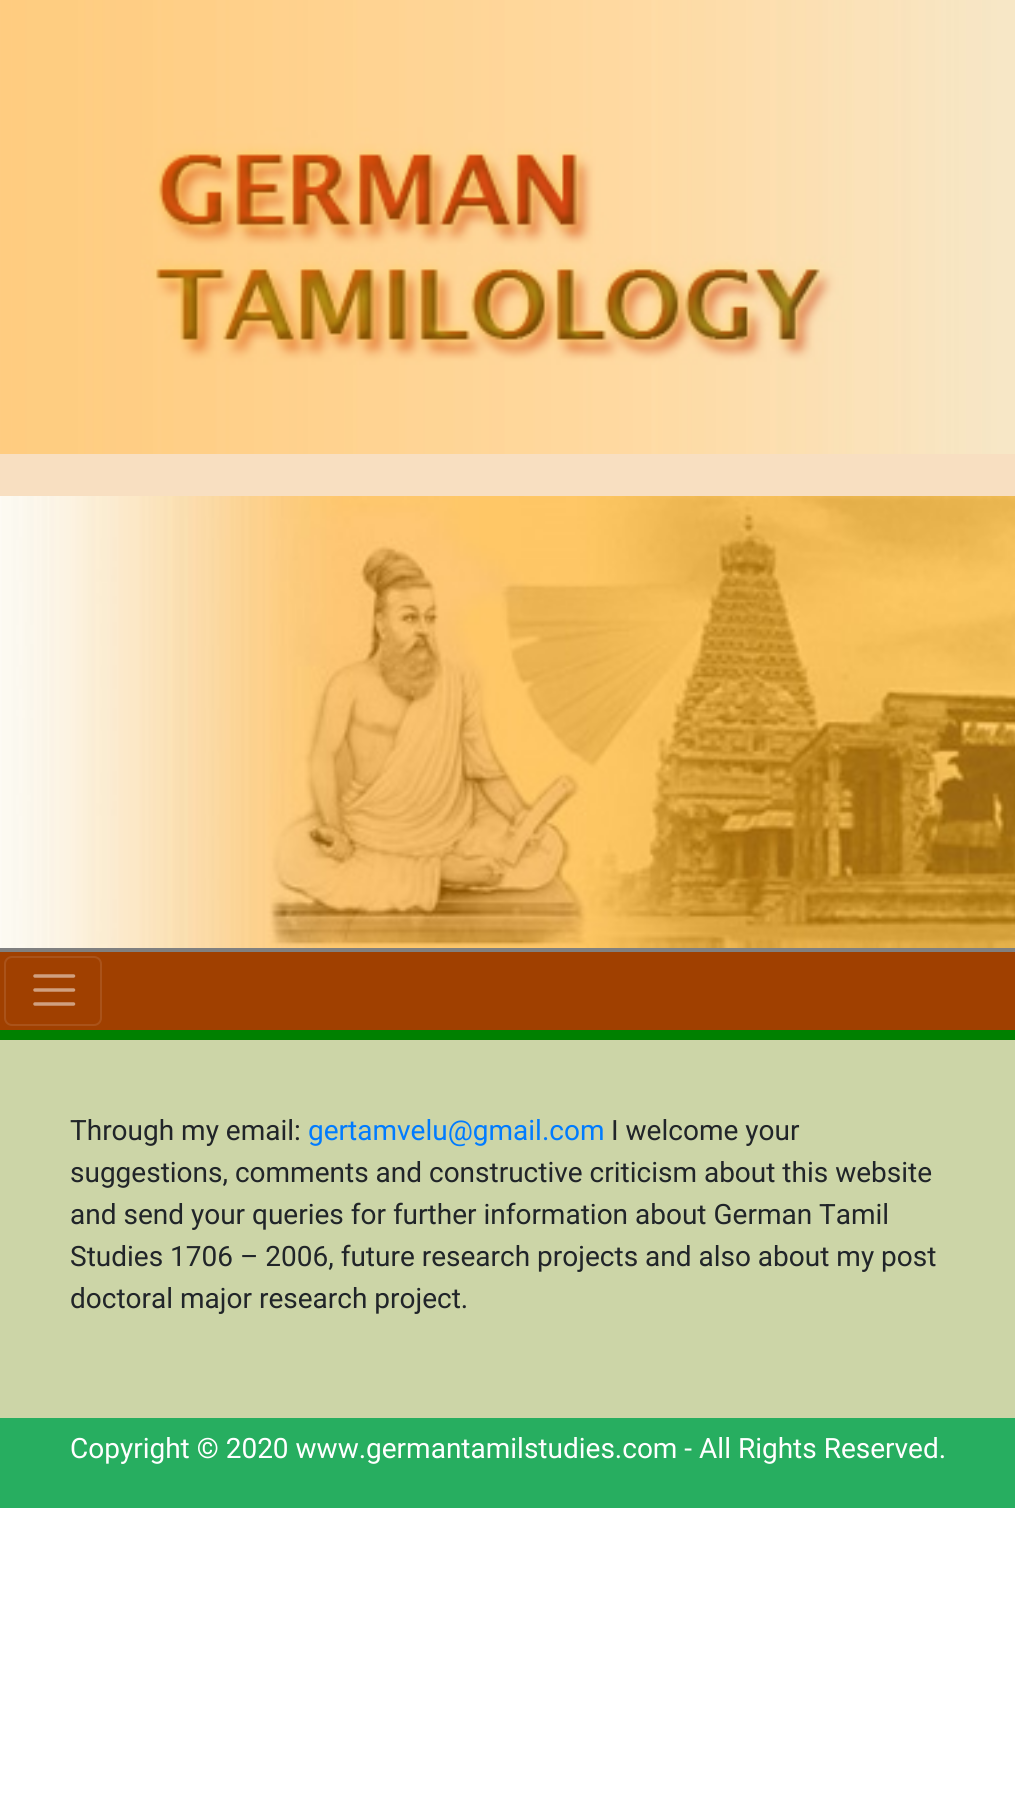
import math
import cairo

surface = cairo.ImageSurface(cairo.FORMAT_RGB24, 1015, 1820)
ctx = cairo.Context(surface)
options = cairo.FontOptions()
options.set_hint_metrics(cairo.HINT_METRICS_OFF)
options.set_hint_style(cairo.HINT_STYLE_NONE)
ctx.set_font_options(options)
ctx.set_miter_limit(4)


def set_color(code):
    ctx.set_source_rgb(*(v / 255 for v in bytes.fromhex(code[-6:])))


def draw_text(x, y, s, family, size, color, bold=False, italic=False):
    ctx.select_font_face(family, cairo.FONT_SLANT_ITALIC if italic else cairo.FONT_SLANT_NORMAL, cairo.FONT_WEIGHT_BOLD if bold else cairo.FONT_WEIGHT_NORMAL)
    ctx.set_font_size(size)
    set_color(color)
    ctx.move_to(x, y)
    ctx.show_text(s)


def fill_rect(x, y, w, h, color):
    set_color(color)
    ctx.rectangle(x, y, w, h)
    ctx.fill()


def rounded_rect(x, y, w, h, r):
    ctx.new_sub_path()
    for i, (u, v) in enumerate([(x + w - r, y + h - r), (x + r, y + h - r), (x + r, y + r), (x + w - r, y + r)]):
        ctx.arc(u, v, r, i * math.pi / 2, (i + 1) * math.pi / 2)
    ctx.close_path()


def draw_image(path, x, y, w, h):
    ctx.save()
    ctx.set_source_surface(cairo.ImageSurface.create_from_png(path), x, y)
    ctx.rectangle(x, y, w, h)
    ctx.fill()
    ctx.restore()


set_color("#ffffff")
ctx.paint()
fill_rect(0, 454, 1015, 42, "#f8dfc1")
draw_image("assets/img1.png", 0, 0, 1015, 454)
draw_image("assets/img2.png", 0, 496, 1015, 452)
fill_rect(0, 952, 1015, 78, "#a04000")
fill_rect(0, 948, 1015, 4, "#808080")
fill_rect(0, 1030, 1015, 10, "#008000")
rounded_rect(5, 957, 96, 68, 7)
set_color("#aa531a")
ctx.stroke()
ctx.new_path()
ctx.move_to(35, 976)
ctx.line_to(73.5, 976)
ctx.move_to(35, 990)
ctx.line_to(73.5, 990)
ctx.move_to(35, 1004)
ctx.line_to(73.5, 1004)
set_color("#d0a080")
ctx.set_line_width(3.5)
ctx.set_line_cap(cairo.LINE_CAP_ROUND)
ctx.stroke()
fill_rect(0, 1040, 1015, 378, "#ccd5a7")
draw_text(70, 1140, "Through my email:", "Roboto", 28, "#212529")
draw_text(308, 1140, "gertamvelu@gmail.com", "Roboto", 28, "#007bff")
draw_text(611, 1140, "I welcome your", "Roboto", 28, "#212529")
draw_text(70, 1182, "suggestions, comments and constructive criticism about this website", "Roboto", 28, "#212529")
draw_text(70, 1224, "and send your queries for further information about German Tamil", "Roboto", 28, "#212529")
draw_text(70, 1266, "Studies 1706 – 2006, future research projects and also about my post", "Roboto", 28, "#212529")
draw_text(70, 1308, "doctoral major research project.", "Roboto", 28, "#212529")
fill_rect(0, 1418, 1015, 90, "#27ae60")
draw_text(70, 1458, "Copyright © 2020 www.germantamilstudies.com - All Rights Reserved.", "Roboto", 28, "#ffffff")
surface.write_to_png("output.png")
